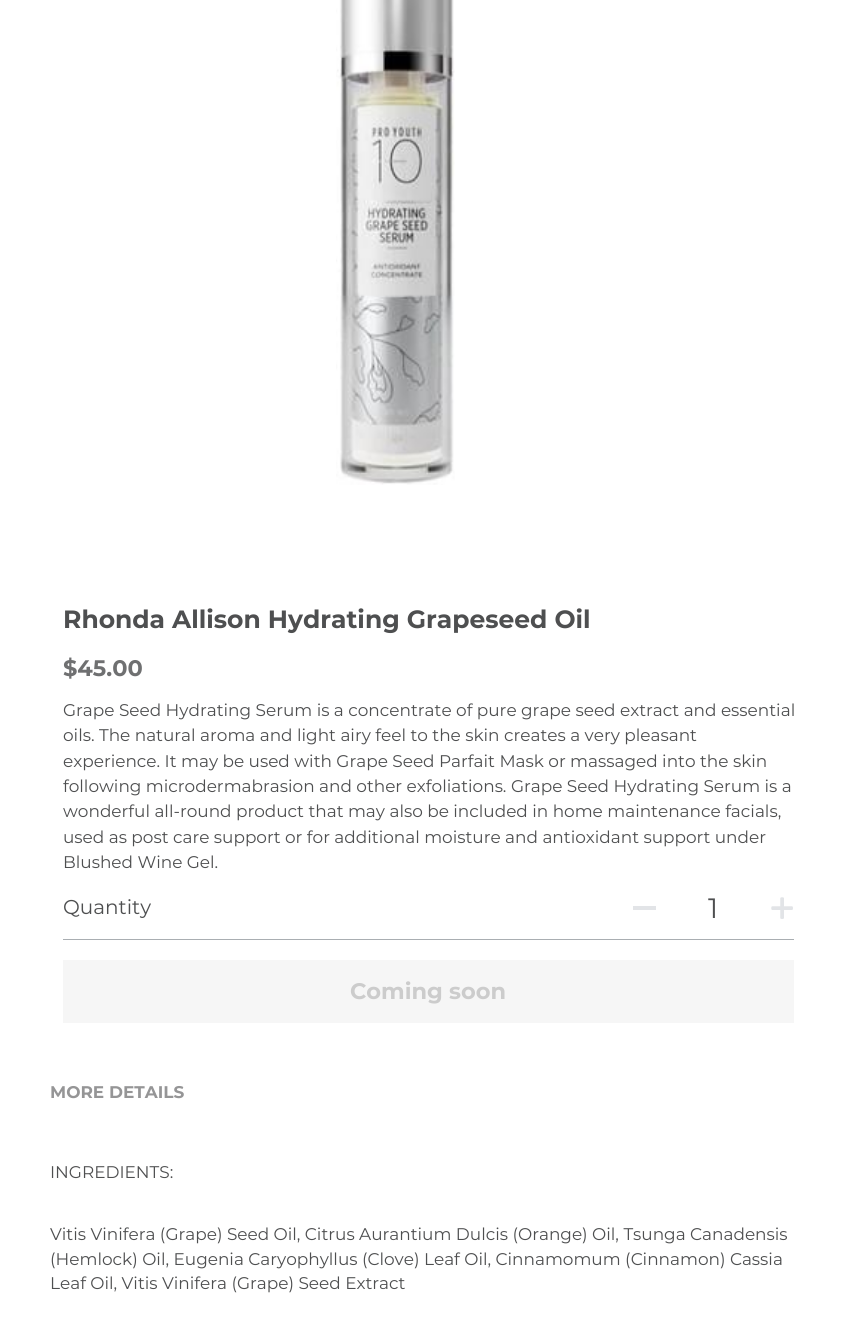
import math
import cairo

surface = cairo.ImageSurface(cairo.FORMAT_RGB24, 844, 1338)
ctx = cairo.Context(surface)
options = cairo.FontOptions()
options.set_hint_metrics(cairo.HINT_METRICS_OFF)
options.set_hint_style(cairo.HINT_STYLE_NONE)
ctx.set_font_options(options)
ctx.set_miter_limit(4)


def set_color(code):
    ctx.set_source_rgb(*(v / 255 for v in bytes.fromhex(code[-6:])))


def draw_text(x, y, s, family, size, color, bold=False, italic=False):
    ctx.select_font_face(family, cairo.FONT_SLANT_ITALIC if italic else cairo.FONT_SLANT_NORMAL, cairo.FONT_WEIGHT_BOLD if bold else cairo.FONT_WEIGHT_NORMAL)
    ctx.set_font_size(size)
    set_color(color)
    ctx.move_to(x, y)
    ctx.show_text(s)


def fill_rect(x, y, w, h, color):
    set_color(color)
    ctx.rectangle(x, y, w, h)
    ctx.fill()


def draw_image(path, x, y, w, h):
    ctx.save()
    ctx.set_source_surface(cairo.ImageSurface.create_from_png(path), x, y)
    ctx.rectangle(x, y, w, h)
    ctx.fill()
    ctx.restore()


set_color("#ffffff")
ctx.paint()
draw_image("assets/img1.png", 336, 0, 119, 485)
draw_text(63, 628, "Rhonda Allison Hydrating Grapeseed Oil", "Montserrat", 25, "#4e4f50", bold=True)
draw_text(63, 676, "$45.00", "Montserrat", 22.5, "#6f7071", bold=True)
draw_text(63, 716, "Grape Seed Hydrating Serum is a concentrate of pure grape seed extract and essential", "Montserrat", 16.9, "#4e4f50")
draw_text(63, 741, "oils. The natural aroma and light airy feel to the skin creates a very pleasant", "Montserrat", 16.9, "#4e4f50")
draw_text(63, 767, "experience. It may be used with Grape Seed Parfait Mask or massaged into the skin", "Montserrat", 16.9, "#4e4f50")
draw_text(63, 792, "following microdermabrasion and other exfoliations. Grape Seed Hydrating Serum is a", "Montserrat", 16.9, "#4e4f50")
draw_text(63, 817, "wonderful all-round product that may also be included in home maintenance facials,", "Montserrat", 16.9, "#4e4f50")
draw_text(63, 843, "used as post care support or for additional moisture and antioxidant support under", "Montserrat", 16.9, "#4e4f50")
draw_text(63, 868, "Blushed Wine Gel.", "Montserrat", 16.9, "#4e4f50")
fill_rect(63, 939, 731, 1, "#a9aeb2")
draw_text(63, 914, "Quantity", "Montserrat", 20, "#4e4f50")
fill_rect(633, 906, 23, 4, "#e2e4e7")
draw_text(708, 918, "1", "Montserrat", 28, "#4e4f50")
draw_image("assets/img2.png", 771, 897, 22, 22)
fill_rect(63, 960, 731, 63, "#f6f6f6")
draw_text(350, 999, "Coming soon", "Montserrat", 22.5, "#cccccc", bold=True)
draw_text(50, 1098, "MORE DETAILS", "Montserrat", 16.9, "#959596", bold=True)
draw_text(50, 1178, "INGREDIENTS:", "Montserrat", 16.9, "#4e4f50")
draw_text(50, 1240, "Vitis Vinifera (Grape) Seed Oil, Citrus Aurantium Dulcis (Orange) Oil, Tsunga Canadensis", "Montserrat", 16.9, "#4e4f50")
draw_text(50, 1265, "(Hemlock) Oil, Eugenia Caryophyllus (Clove) Leaf Oil, Cinnamomum (Cinnamon) Cassia", "Montserrat", 16.9, "#4e4f50")
draw_text(50, 1289, "Leaf Oil, Vitis Vinifera (Grape) Seed Extract", "Montserrat", 16.9, "#4e4f50")
surface.write_to_png("output.png")
